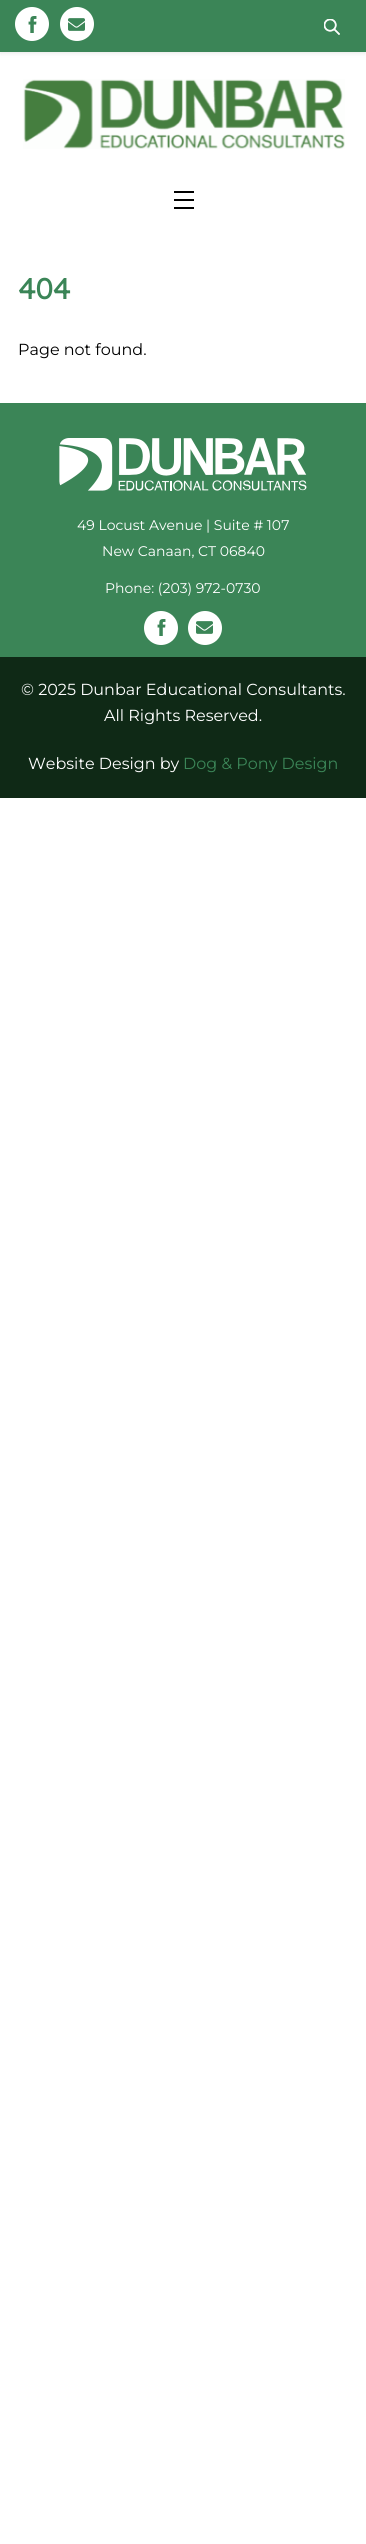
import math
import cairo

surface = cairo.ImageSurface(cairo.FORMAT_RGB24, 366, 2544)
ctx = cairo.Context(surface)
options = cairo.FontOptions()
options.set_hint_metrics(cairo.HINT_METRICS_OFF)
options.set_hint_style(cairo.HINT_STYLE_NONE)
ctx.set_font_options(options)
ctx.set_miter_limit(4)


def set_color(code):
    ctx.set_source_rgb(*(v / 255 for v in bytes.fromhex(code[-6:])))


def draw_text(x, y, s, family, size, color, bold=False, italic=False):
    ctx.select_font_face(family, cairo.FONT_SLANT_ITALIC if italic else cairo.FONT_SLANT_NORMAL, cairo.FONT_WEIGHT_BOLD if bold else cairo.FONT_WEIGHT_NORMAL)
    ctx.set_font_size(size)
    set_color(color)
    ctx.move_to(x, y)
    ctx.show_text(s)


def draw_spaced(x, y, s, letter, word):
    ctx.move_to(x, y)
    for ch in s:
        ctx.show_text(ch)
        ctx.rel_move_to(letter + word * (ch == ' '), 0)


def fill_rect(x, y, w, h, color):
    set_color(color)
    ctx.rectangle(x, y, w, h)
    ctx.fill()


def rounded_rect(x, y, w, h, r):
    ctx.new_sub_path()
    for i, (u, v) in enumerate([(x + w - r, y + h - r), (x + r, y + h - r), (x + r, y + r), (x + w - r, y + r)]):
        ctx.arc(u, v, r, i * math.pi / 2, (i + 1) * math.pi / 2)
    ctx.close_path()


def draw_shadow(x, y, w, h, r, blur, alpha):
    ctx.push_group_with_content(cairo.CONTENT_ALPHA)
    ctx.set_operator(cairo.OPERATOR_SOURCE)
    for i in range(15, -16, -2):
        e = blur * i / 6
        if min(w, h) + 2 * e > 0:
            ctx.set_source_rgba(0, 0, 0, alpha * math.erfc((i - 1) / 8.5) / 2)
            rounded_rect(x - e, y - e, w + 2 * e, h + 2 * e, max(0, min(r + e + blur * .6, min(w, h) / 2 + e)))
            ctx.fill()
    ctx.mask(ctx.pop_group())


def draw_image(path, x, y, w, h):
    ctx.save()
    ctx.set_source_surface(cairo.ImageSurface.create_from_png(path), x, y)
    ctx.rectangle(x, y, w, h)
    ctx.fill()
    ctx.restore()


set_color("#ffffff")
ctx.paint()
set_color("#000000")
draw_shadow(0, 1, 366, 52, 0, 2.5, 0.1)
fill_rect(0, 0, 366, 52, "#3b8557")
set_color("#ffffff")
ctx.arc(32, 24, 17, 0, 2 * math.pi)
ctx.fill()
draw_image("assets/img1.png", 28, 16, 9, 17)
ctx.arc(77, 24, 17, 0, 2 * math.pi)
ctx.fill()
draw_image("assets/img2.png", 68, 18, 17, 13)
draw_image("assets/img3.png", 324, 19, 16, 16)
draw_image("assets/img4.png", 23, 79, 322, 70)
fill_rect(174, 207, 20, 2, "#000000")
fill_rect(174, 191, 20, 2, "#000000")
fill_rect(174, 199, 20, 2, "#000000")
ctx.select_font_face("Lexend")
ctx.set_font_size(30)
set_color("#3b8557")
draw_spaced(18, 299, "404", -1, 0)
draw_text(18, 355, "Page not found.", "Montserrat Thin", 16, "#000000")
fill_rect(0, 403, 366, 254, "#3b8557")
draw_image("assets/img5.png", 59, 438, 248, 53)
draw_text(77, 530, "49 Locust Avenue | Suite # 107", "Montserrat Thin", 14, "#ffffff")
draw_text(102, 556, "New Canaan, CT 06840", "Montserrat Thin", 14, "#ffffff")
draw_text(105, 593, "Phone: (203) 972-0730", "Montserrat Thin", 14, "#ffffff")
ctx.new_path()
ctx.arc(161, 628, 17, 0, 2 * math.pi)
ctx.fill()
draw_image("assets/img1.png", 157, 619, 9, 17)
ctx.arc(205, 628, 17, 0, 2 * math.pi)
ctx.fill()
draw_image("assets/img2.png", 196, 621, 17, 13)
fill_rect(0, 657, 366, 141, "#0f2916")
draw_text(21, 695, "© 2025 Dunbar Educational Consultants.", "Montserrat Thin", 16, "#ffffff")
draw_text(104, 721, "All Rights Reserved.", "Montserrat Thin", 16, "#ffffff")
draw_text(28, 769, "Website Design by", "Montserrat Thin", 16, "#ffffff")
draw_text(183, 769, "Dog & Pony Design", "Montserrat Thin", 16, "#3b8557")
surface.write_to_png("output.png")
